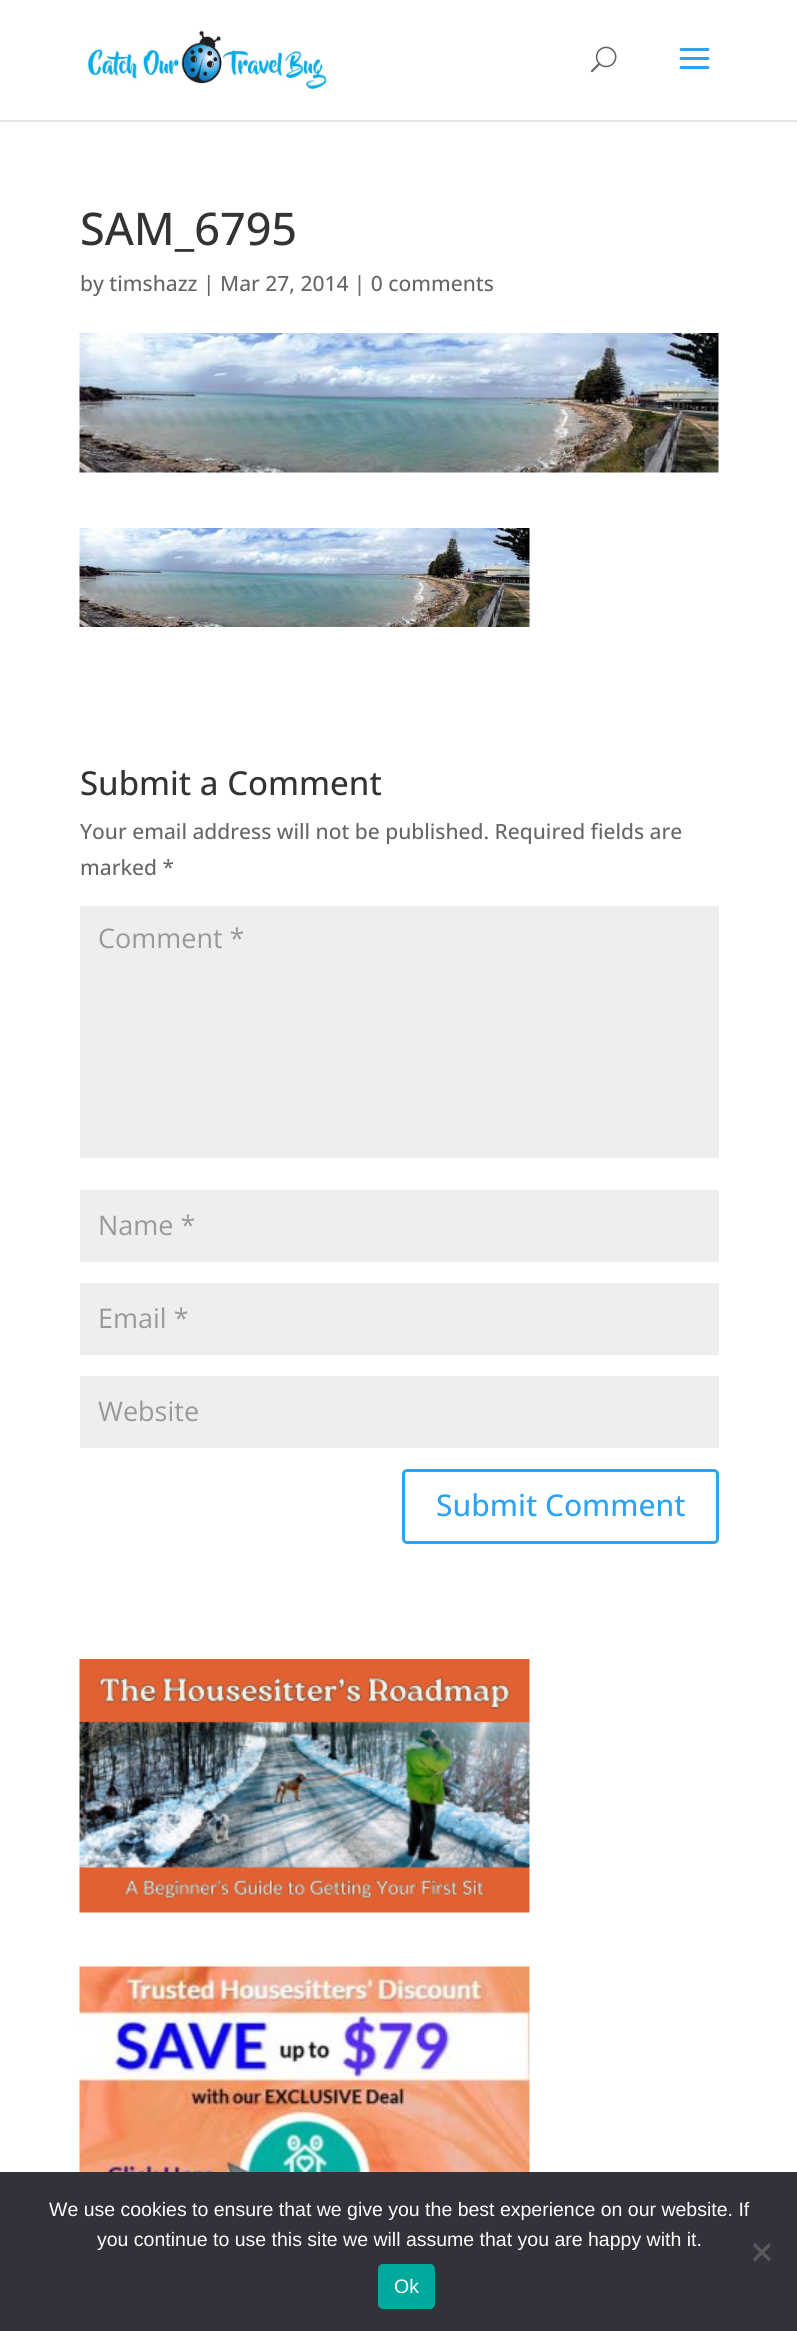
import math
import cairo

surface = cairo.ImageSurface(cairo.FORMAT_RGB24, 797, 2331)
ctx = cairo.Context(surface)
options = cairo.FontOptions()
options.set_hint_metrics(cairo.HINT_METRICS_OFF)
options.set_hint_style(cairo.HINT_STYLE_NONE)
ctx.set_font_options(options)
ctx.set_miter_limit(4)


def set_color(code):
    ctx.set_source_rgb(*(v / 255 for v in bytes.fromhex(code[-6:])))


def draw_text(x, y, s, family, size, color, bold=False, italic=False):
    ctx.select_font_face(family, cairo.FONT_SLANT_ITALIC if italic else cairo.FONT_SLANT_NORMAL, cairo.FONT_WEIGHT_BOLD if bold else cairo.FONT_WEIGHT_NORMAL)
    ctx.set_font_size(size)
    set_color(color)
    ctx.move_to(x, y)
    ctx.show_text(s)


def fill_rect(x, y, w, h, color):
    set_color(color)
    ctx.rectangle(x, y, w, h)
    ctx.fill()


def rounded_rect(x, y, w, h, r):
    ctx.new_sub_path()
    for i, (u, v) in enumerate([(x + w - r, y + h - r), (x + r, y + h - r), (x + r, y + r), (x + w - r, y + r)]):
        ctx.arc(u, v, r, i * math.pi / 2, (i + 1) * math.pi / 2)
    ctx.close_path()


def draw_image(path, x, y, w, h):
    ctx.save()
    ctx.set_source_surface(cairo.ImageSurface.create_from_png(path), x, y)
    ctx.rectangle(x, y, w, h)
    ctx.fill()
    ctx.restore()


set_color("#ffffff")
ctx.paint()
fill_rect(0, 120, 797, 2, "#e6e6e6")
draw_image("assets/img1.png", 86, 30, 243, 61)
draw_image("assets/img2.png", 590, 46, 27, 27)
draw_image("assets/img3.png", 679, 48, 31, 21)
draw_text(80, 245, "SAM_6795", "Open Sans Medium", 45, "#333333")
draw_text(80, 291, "by timshazz | Mar 27, 2014 | 0 comments", "Open Sans Medium", 21, "#666666")
draw_image("assets/img4.png", 79, 333, 640, 140)
draw_image("assets/img5.png", 79, 528, 451, 99)
draw_text(80, 795, "Submit a Comment", "Open Sans Medium", 33, "#333333")
draw_text(80, 839, "Your email address will not be published. Required fields are", "Open Sans Medium", 21, "#666666")
draw_text(80, 875, "marked *", "Open Sans Medium", 21, "#666666")
fill_rect(80, 906, 639, 252, "#eeeeee")
draw_text(98, 948, "Comment *", "Open Sans", 27, "#999999")
fill_rect(80, 1190, 639, 72, "#eeeeee")
draw_text(98, 1235, "Name *", "Open Sans", 27, "#999999")
fill_rect(80, 1283, 639, 72, "#eeeeee")
draw_text(98, 1328, "Email *", "Open Sans", 27, "#999999")
fill_rect(80, 1376, 639, 72, "#eeeeee")
draw_text(98, 1421, "Website", "Open Sans", 27, "#999999")
rounded_rect(403.5, 1470.5, 314, 72, 3.5)
set_color("#2ea3f2")
ctx.set_line_width(3)
ctx.stroke()
draw_text(436, 1516, "Submit Comment", "Open Sans Medium", 30, "#2ea3f2")
draw_image("assets/img6.png", 79, 1659, 451, 254)
draw_image("assets/img7.png", 79, 1966, 451, 206)
fill_rect(0, 2172, 797, 159, "#32323a")
draw_text(49, 2216, "We use cookies to ensure that we give you the best experience on our website. If", "Liberation Sans", 19.5, "#ffffff")
draw_text(97, 2246, "you continue to use this site we will assume that you are happy with it.", "Liberation Sans", 19.5, "#ffffff")
set_color("#59595d")
ctx.new_path()
ctx.move_to(769, 2243)
ctx.line_to(771, 2245.5)
ctx.line_to(755, 2261.5)
ctx.line_to(753, 2259)
ctx.close_path()
ctx.fill()
ctx.new_path()
ctx.move_to(753, 2245.5)
ctx.line_to(755, 2243)
ctx.line_to(771, 2259)
ctx.line_to(769, 2261.5)
ctx.close_path()
ctx.fill()
set_color("#00a99d")
rounded_rect(378, 2264, 57, 45, 5)
ctx.fill()
draw_text(394, 2293, "Ok", "Liberation Sans", 19.5, "#ffffff")
surface.write_to_png("output.png")
